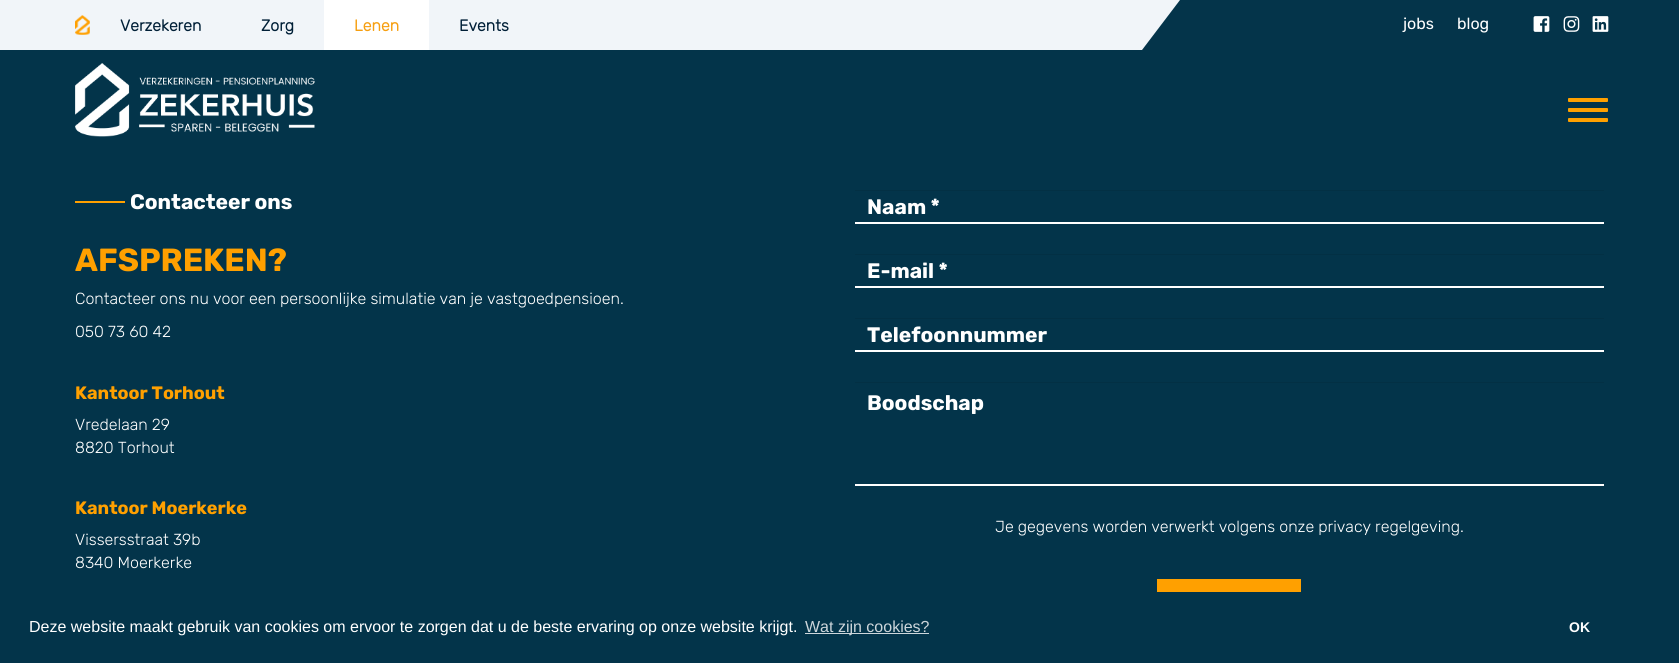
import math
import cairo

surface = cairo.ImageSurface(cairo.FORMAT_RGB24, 1679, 663)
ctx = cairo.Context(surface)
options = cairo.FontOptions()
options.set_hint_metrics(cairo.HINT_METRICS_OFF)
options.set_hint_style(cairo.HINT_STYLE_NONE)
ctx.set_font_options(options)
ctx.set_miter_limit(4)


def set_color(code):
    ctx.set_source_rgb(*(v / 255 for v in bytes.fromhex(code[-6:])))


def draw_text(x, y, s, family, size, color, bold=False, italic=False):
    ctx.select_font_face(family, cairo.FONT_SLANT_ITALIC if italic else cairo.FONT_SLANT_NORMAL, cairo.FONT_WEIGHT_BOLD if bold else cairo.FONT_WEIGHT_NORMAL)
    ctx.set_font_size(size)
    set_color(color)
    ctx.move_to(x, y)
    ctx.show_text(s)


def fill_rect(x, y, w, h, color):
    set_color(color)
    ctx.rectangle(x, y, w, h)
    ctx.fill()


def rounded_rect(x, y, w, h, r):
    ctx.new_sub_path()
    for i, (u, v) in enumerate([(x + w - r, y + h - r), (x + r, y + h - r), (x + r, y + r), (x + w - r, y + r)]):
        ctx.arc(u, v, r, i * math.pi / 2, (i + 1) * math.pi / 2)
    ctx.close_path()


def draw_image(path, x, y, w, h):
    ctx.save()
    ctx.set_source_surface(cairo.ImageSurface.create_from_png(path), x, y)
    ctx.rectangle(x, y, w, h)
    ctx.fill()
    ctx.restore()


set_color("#03344a")
ctx.paint()
fill_rect(0, 0, 1180, 50, "#f1f5f9")
draw_image("assets/img1.png", 75, 15, 15, 20)
draw_text(120, 31, "Verzekeren", "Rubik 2", 16, "#001f37", bold=True)
draw_text(261, 31, "Zorg", "Rubik 2", 16, "#001f37", bold=True)
fill_rect(324, 0, 105, 50, "#ffffff")
draw_text(354, 31, "Lenen", "Rubik 2", 16, "#f69f11", bold=True)
draw_text(459, 31, "Events", "Rubik 2", 16, "#001f37", bold=True)
set_color("#04344a")
ctx.new_path()
ctx.move_to(1180, 0)
ctx.line_to(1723, 0)
ctx.line_to(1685, 50)
ctx.line_to(1142, 50)
ctx.close_path()
ctx.fill()
draw_text(1403, 29, "jobs", "Rubik", 16, "#ffffff")
draw_text(1457, 29, "blog", "Rubik", 16, "#ffffff")
draw_image("assets/img2.png", 1533, 16, 17, 16)
draw_image("assets/img3.png", 1563, 16, 17, 16)
draw_image("assets/img4.png", 1592, 16, 17, 16)
draw_image("assets/img5.png", 75, 63, 240, 74)
set_color("#ffa000")
rounded_rect(1568, 98, 40, 4, 1)
ctx.fill()
rounded_rect(1568, 108, 40, 4, 1)
ctx.fill()
rounded_rect(1568, 118, 40, 4, 1)
ctx.fill()
fill_rect(75, 201, 50, 2, "#ffa000")
draw_text(130, 209, "Contacteer ons", "Rubik", 21, "#ffffff", bold=True)
draw_text(75, 271, "AFSPREKEN?", "Rubik", 32, "#ffa000", bold=True)
draw_text(75, 304, "Contacteer ons nu voor een persoonlijke simulatie van je vastgoedpensioen.", "Rubik Light", 16, "#ffffff")
draw_text(75, 337, "050 73 60 42", "Rubik Light", 16, "#ffffff")
draw_text(75, 399, "Kantoor Torhout", "Rubik", 18, "#ffa000", bold=True)
draw_text(75, 430, "Vredelaan 29", "Rubik Light", 16, "#ffffff")
draw_text(75, 453, "8820 Torhout", "Rubik Light", 16, "#ffffff")
draw_text(75, 514, "Kantoor Moerkerke", "Rubik", 18, "#ffa000", bold=True)
draw_text(75, 545, "Vissersstraat 39b", "Rubik Light", 16, "#ffffff")
draw_text(75, 568, "8340 Moerkerke", "Rubik Light", 16, "#ffffff")
fill_rect(855, 190, 749, 1, "#033044")
fill_rect(855, 222, 749, 2, "#ffffff")
draw_text(867, 214, "Naam *", "Rubik", 21, "#ffffff", bold=True)
fill_rect(855, 254, 749, 1, "#033044")
fill_rect(855, 286, 749, 2, "#ffffff")
draw_text(867, 278, "E-mail *", "Rubik", 21, "#ffffff", bold=True)
fill_rect(855, 318, 749, 1, "#033044")
fill_rect(855, 350, 749, 2, "#ffffff")
draw_text(867, 342, "Telefoonnummer", "Rubik", 21, "#ffffff", bold=True)
fill_rect(855, 382, 749, 1, "#033044")
fill_rect(855, 484, 749, 2, "#ffffff")
draw_text(867, 410, "Boodschap", "Rubik", 21, "#ffffff", bold=True)
draw_text(995, 532, "Je gegevens worden verwerkt volgens onze privacy regelgeving.", "Rubik Light", 16, "#ffffff")
fill_rect(1157, 579, 144, 13, "#ffa000")
draw_text(29, 632, "Deze website maakt gebruik van cookies om ervoor te zorgen dat u de beste ervaring op onze website krijgt.", "Liberation Sans", 16, "#ffffff")
fill_rect(805, 633, 124, 1, "#cdd6db")
draw_text(805, 632, "Wat zijn cookies?", "Liberation Sans", 16, "#cdd6db")
draw_text(1569, 632, "OK", "Liberation Sans", 14, "#ffffff", bold=True)
surface.write_to_png("output.png")
